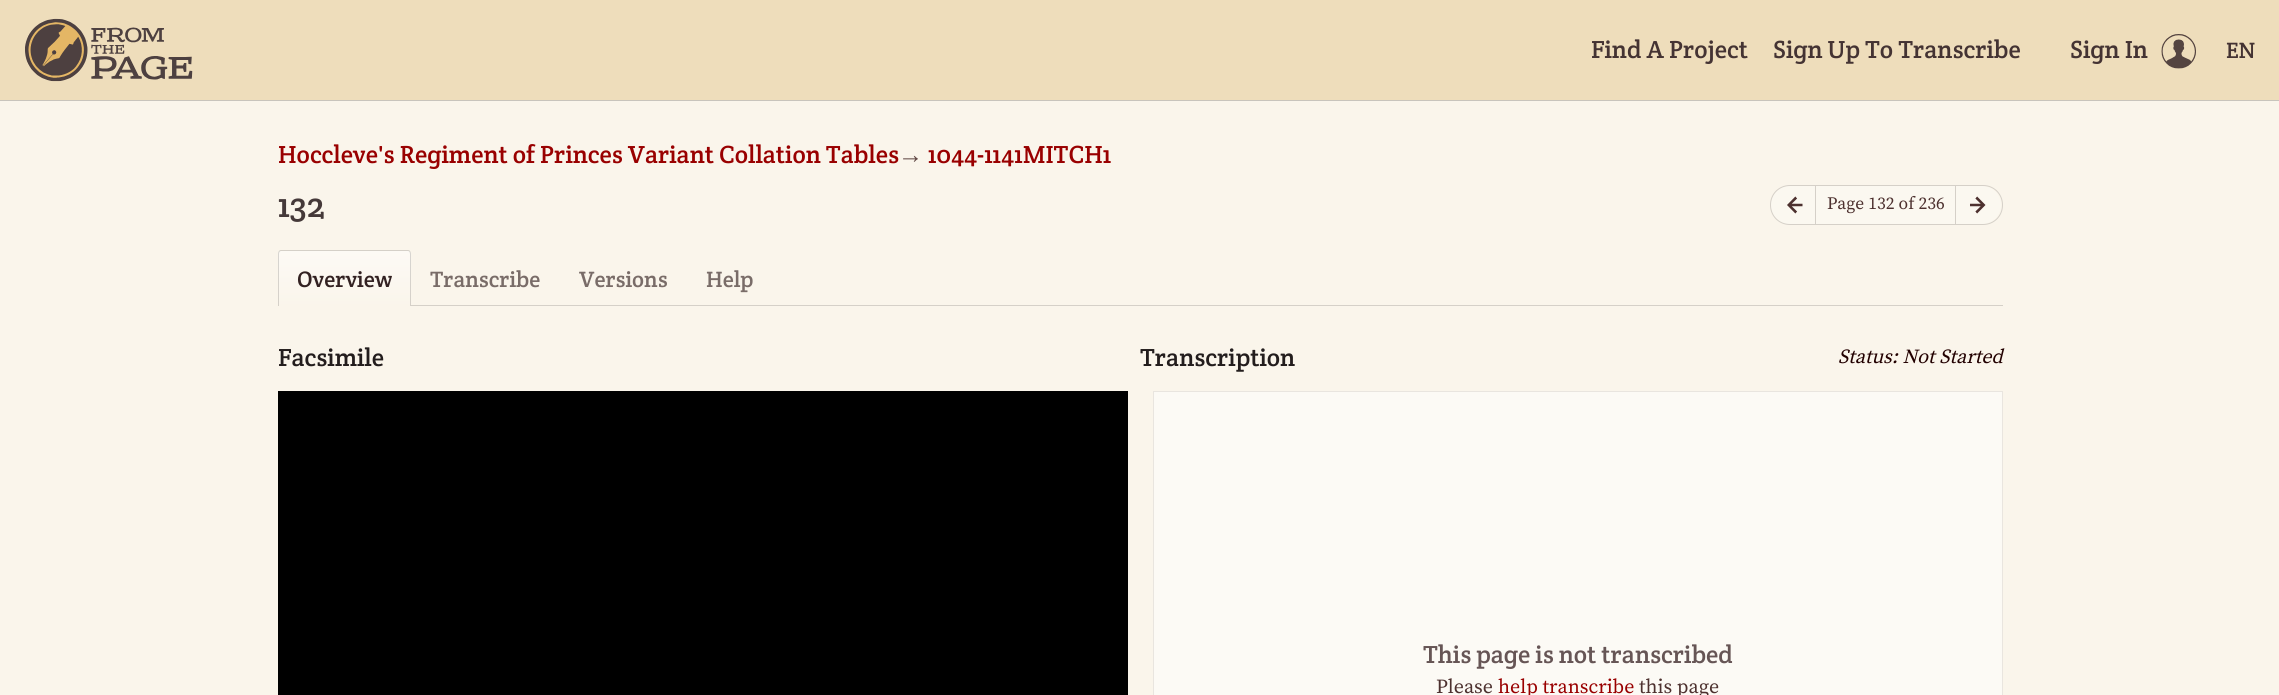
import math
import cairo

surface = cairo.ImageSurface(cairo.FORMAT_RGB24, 2279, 695)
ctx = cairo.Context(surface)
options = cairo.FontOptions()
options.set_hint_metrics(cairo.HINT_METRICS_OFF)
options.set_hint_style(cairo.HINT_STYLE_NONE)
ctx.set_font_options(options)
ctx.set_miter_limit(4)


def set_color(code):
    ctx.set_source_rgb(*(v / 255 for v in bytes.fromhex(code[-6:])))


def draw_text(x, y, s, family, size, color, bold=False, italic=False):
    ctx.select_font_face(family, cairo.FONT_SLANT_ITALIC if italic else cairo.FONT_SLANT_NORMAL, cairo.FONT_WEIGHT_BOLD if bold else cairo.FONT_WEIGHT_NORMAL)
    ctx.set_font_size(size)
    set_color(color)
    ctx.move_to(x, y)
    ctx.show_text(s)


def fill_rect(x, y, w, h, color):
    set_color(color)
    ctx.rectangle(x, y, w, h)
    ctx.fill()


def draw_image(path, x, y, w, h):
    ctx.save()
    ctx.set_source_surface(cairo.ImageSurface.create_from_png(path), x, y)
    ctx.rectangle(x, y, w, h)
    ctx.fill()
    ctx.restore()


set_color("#faf5eb")
ctx.paint()
fill_rect(0, 100, 2279, 1, "#c8c4bc")
fill_rect(0, 0, 2279, 100, "#eeddbb")
draw_image("assets/img1.png", 25, 18, 168, 64)
draw_text(1591, 58, "Find A Project", "Crete Round", 25, "#443333")
draw_text(1773, 58, "Sign Up To Transcribe", "Crete Round", 25, "#443333")
draw_text(2070, 58, "Sign In", "Crete Round", 25, "#443333")
draw_image("assets/img2.png", 2161, 34, 35, 35)
draw_text(2226, 58, "EN", "Crete Round", 22.5, "#443333")
draw_text(278, 163, "Hoccleve's Regiment of Princes Variant Collation Tables", "Crete Round", 25, "#990000")
draw_text(898, 163, "→", "Liberation Serif", 25, "#634a47")
draw_text(928, 163, "1044-1141MITCH1", "Crete Round", 25, "#990000")
draw_text(278, 217, "132", "Crete Round", 35, "#453939")
set_color("#fbf8f0")
ctx.new_path()
ctx.move_to(1790, 185.5)
ctx.line_to(1815.5, 185.5)
ctx.line_to(1815.5, 224.5)
ctx.line_to(1790, 224.5)
ctx.curve_to(1779, 224.5, 1770.5, 216, 1770.5, 205)
ctx.curve_to(1770.5, 194, 1779, 185.5, 1790, 185.5)
ctx.close_path()
ctx.fill_preserve()
set_color("#d5d0c8")
ctx.set_line_width(1)
ctx.stroke()
draw_image("assets/img3.png", 1787, 196, 16, 18)
fill_rect(1816, 186, 139, 38, "#fbf8f0")
fill_rect(1816, 185, 139, 1, "#d5d0c8")
fill_rect(1816, 224, 139, 1, "#d5d0c8")
draw_text(1827, 209, "Page 132 of 236", "Source Serif Pro", 17.5, "#4d312f")
set_color("#fbf8f0")
ctx.new_path()
ctx.move_to(1956, 186)
ctx.line_to(1982, 186)
ctx.curve_to(1992.5, 186, 2001, 194.5, 2001, 205)
ctx.curve_to(2001, 215.5, 1992.5, 224, 1982, 224)
ctx.line_to(1956, 224)
ctx.close_path()
ctx.fill()
ctx.new_path()
ctx.move_to(1955.5, 185.5)
ctx.line_to(1983, 185.5)
ctx.curve_to(1994, 185.5, 2002.5, 194, 2002.5, 205)
ctx.curve_to(2002.5, 216, 1994, 224.5, 1983, 224.5)
ctx.line_to(1955.5, 224.5)
ctx.close_path()
set_color("#d5d0c8")
ctx.stroke()
draw_image("assets/img4.png", 1970, 196, 16, 18)
fill_rect(411, 305, 1592, 1, "#d5d0c8")
ctx.save()
ctx.new_path()
ctx.move_to(282, 250)
ctx.line_to(407, 250)
ctx.curve_to(409, 250, 411, 252, 411, 254)
ctx.line_to(411, 306)
ctx.line_to(278, 306)
ctx.line_to(278, 254)
ctx.curve_to(278, 252, 280, 250, 282, 250)
ctx.close_path()
ctx.clip()
gradient = cairo.LinearGradient(344, 251, 344, 306)
gradient.add_color_stop_rgba(0, 0.992, 0.98, 0.961, 1)
gradient.add_color_stop_rgba(1, 0.98, 0.961, 0.922, 1)
ctx.set_source(gradient)
ctx.rectangle(278, 251, 133, 55)
ctx.fill()
ctx.restore()
ctx.set_source_rgba(0, 0, 0, 0.15)
ctx.set_fill_rule(cairo.FILL_RULE_EVEN_ODD)
ctx.new_path()
ctx.move_to(281, 250)
ctx.line_to(408, 250)
ctx.curve_to(410, 250, 411, 252, 411, 254)
ctx.line_to(411, 306)
ctx.line_to(278, 306)
ctx.line_to(278, 254)
ctx.curve_to(278, 252, 279, 250, 281, 250)
ctx.close_path()
ctx.move_to(281, 251)
ctx.line_to(408, 251)
ctx.curve_to(409, 251, 410, 252, 410, 254)
ctx.line_to(410, 306)
ctx.line_to(279, 306)
ctx.line_to(279, 254)
ctx.curve_to(279, 252, 280, 251, 281, 251)
ctx.close_path()
ctx.fill()
draw_text(297, 287, "Overview", "Crete Round", 22.5, "#332222")
draw_text(430, 287, "Transcribe", "Crete Round", 22.5, "#796c68")
draw_text(579, 287, "Versions", "Crete Round", 22.5, "#796c68")
draw_text(706, 287, "Help", "Crete Round", 22.5, "#796c68")
draw_text(278, 366, "Facsimile", "Crete Round", 25, "#231d1d")
draw_text(1140, 366, "Transcription", "Crete Round", 25, "#231d1d")
draw_text(1838, 363, "Status: Not Started", "Source Serif Pro", 20, "#220000", italic=True)
fill_rect(278, 391, 850, 304, "#000000")
set_color("#fcfaf5")
ctx.rectangle(1153.5, 391.5, 849, 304)
ctx.fill_preserve()
set_color("#e9e5df")
ctx.stroke()
draw_text(1423, 663, "This page is not transcribed", "Crete Round", 25, "#665555")
draw_text(1436, 693, "Please", "Source Serif Pro", 20, "#4d312f")
draw_text(1498, 693, "help transcribe", "Source Serif Pro", 20, "#990000")
draw_text(1639, 693, "this page", "Source Serif Pro", 20, "#4d312f")
surface.write_to_png("output.png")
